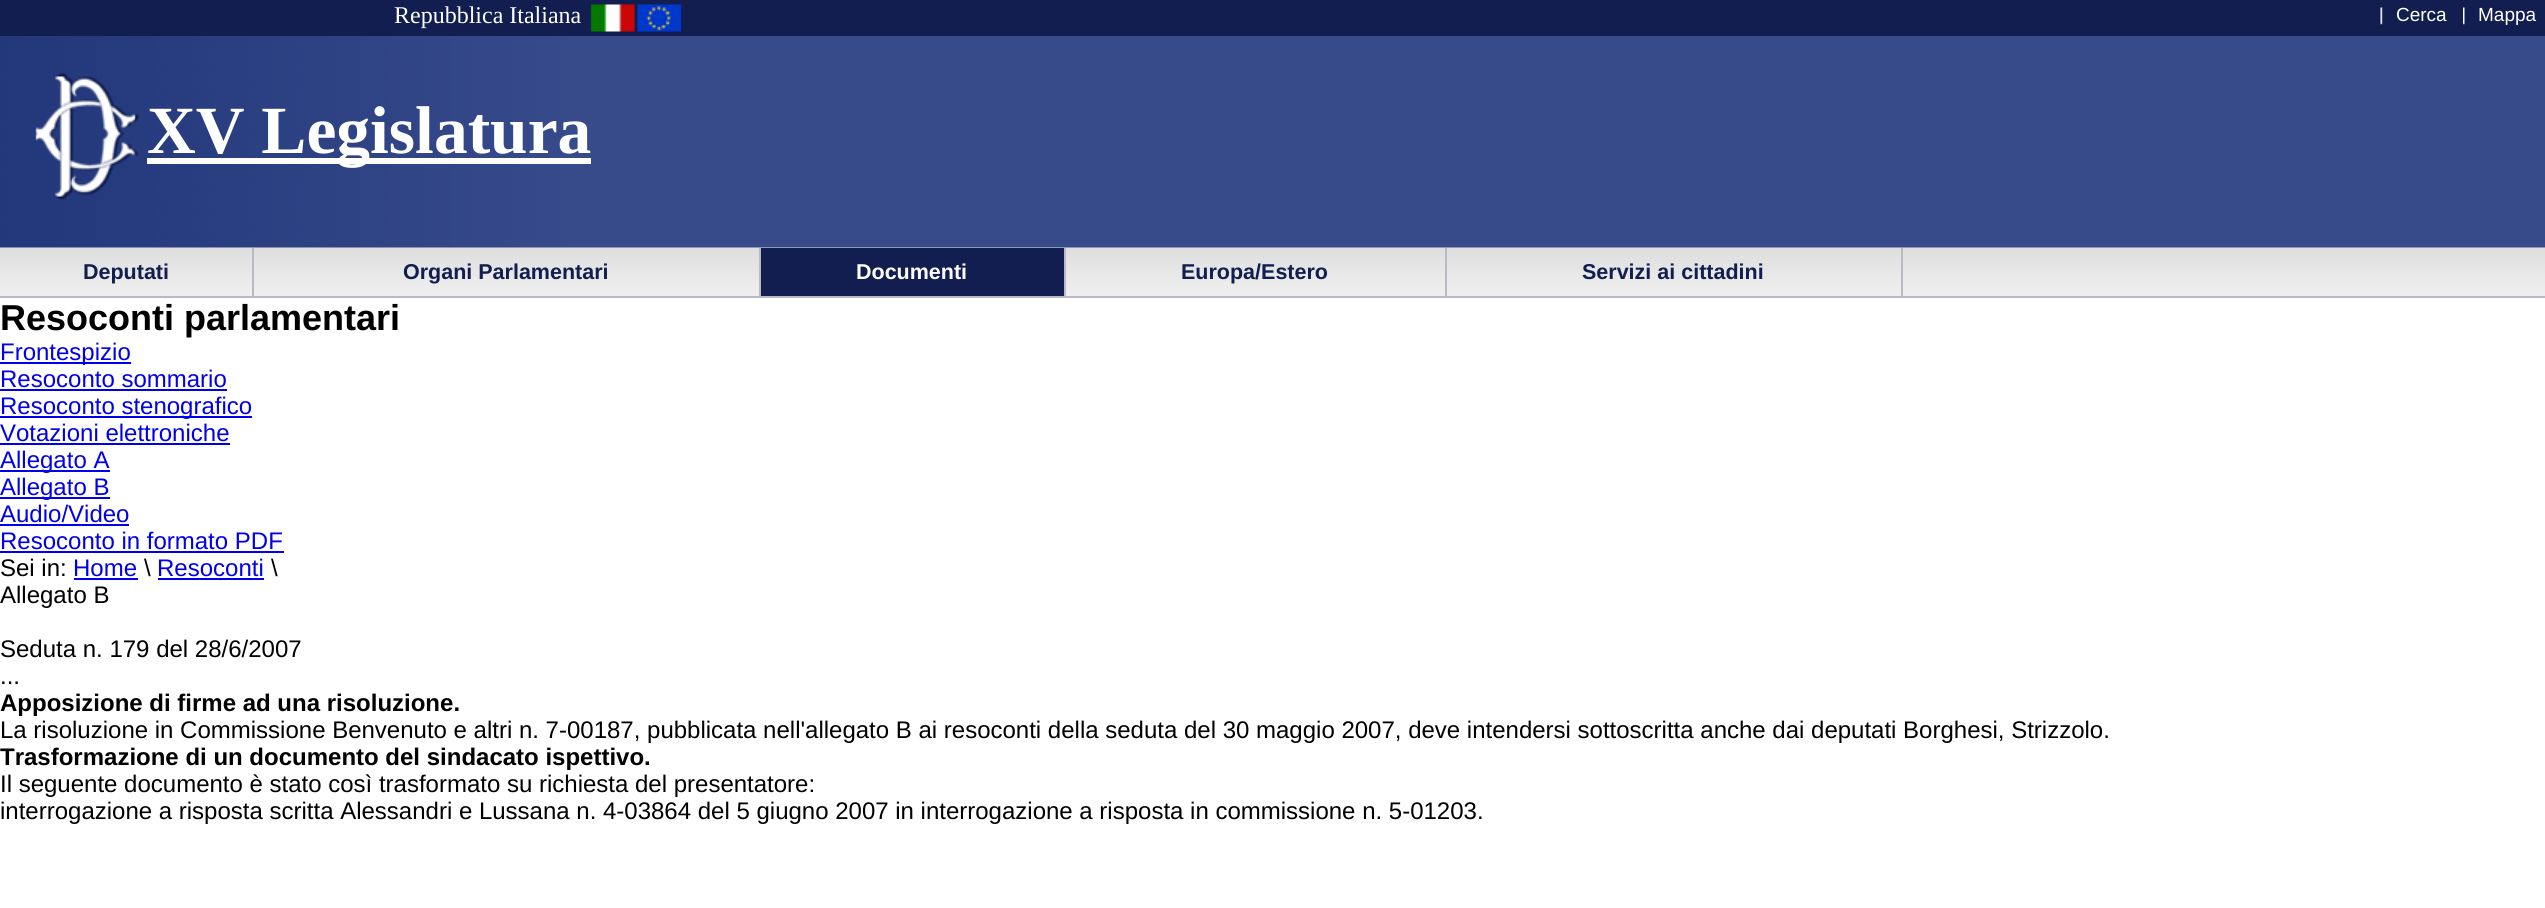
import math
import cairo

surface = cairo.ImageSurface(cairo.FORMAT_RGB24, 2545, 908)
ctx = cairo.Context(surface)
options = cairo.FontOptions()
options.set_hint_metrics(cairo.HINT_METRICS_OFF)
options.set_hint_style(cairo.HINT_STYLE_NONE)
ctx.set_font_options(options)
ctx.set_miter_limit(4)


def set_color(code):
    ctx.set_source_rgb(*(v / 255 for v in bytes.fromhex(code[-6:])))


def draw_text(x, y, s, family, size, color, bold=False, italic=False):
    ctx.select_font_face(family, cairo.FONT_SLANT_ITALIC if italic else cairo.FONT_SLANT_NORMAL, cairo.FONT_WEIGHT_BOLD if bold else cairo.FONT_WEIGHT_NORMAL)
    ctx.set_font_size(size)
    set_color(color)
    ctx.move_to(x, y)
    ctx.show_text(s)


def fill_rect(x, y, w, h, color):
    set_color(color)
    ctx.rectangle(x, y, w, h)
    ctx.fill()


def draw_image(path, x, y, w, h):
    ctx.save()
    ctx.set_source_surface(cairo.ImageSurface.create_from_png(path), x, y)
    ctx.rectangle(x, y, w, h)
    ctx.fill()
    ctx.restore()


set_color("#ffffff")
ctx.paint()
fill_rect(0, 36, 2545, 212, "#374a8a")
draw_image("assets/img1.png", 0, 36, 569, 212)
fill_rect(0, 0, 2545, 36, "#121e50")
draw_text(394, 23, "Repubblica Italiana", "Liberation Serif", 24, "#ffffff")
draw_image("assets/img2.png", 590, 4, 45, 28)
draw_image("assets/img3.png", 637, 4, 45, 28)
draw_image("assets/img4.png", 2380, 7, 3, 18)
draw_text(2396, 21, "Cerca", "Liberation Sans", 19, "#ffffff")
draw_image("assets/img5.png", 2463, 7, 2, 18)
draw_text(2478, 21, "Mappa", "Liberation Sans", 19, "#ffffff")
draw_image("assets/img6.png", 35, 73, 104, 127)
fill_rect(147, 158, 444, 6, "#ffffff")
draw_text(147, 153, "XV Legislatura", "Liberation Serif", 67.5, "#ffffff", bold=True)
draw_image("assets/img7.png", 0, 247, 2545, 49)
fill_rect(0, 296, 2545, 2, "#b7bac3")
fill_rect(252, 248, 2, 48, "#b7bac3")
draw_text(83, 279, "Deputati", "Liberation Sans", 21.5, "#121e50", bold=True)
fill_rect(759, 248, 2, 48, "#b7bac3")
draw_text(403, 279, "Organi Parlamentari", "Liberation Sans", 21.5, "#121e50", bold=True)
fill_rect(761, 248, 303, 48, "#121e50")
fill_rect(1064, 248, 2, 48, "#b7bac3")
draw_text(856, 279, "Documenti", "Liberation Sans", 21.5, "#ffffff", bold=True)
fill_rect(1445, 248, 2, 48, "#b7bac3")
draw_text(1181, 279, "Europa/Estero", "Liberation Sans", 21.5, "#121e50", bold=True)
fill_rect(1901, 248, 2, 48, "#b7bac3")
draw_text(1582, 279, "Servizi ai cittadini", "Liberation Sans", 21.5, "#121e50", bold=True)
draw_text(0, 330, "Resoconti parlamentari", "Liberation Sans", 36, "#000000", bold=True)
fill_rect(0, 362, 131, 2, "#0000ee")
draw_text(0, 360, "Frontespizio", "Liberation Sans", 24, "#0000ee")
draw_text(0, 387, "Resoconto sommario", "Liberation Sans", 24, "#0000ee")
fill_rect(0, 389, 227, 2, "#0000ee")
fill_rect(0, 416, 252, 2, "#0000ee")
draw_text(0, 414, "Resoconto stenografico", "Liberation Sans", 24, "#0000ee")
draw_text(0, 441, "Votazioni elettroniche", "Liberation Sans", 24, "#0000ee")
fill_rect(0, 443, 230, 2, "#0000ee")
fill_rect(0, 470, 110, 2, "#0000ee")
draw_text(0, 468, "Allegato A", "Liberation Sans", 24, "#0000ee")
fill_rect(0, 497, 110, 2, "#0000ee")
draw_text(0, 495, "Allegato B", "Liberation Sans", 24, "#0000ee")
draw_text(0, 522, "Audio/Video", "Liberation Sans", 24, "#0000ee")
fill_rect(0, 524, 129, 2, "#0000ee")
draw_text(0, 549, "Resoconto in formato PDF", "Liberation Sans", 24, "#0000ee")
fill_rect(0, 551, 284, 2, "#0000ee")
draw_text(0, 576, "Sei in:", "Liberation Sans", 24, "#000000")
draw_text(73, 576, "Home", "Liberation Sans", 24, "#0000ee")
fill_rect(74, 578, 64, 2, "#0000ee")
draw_text(144, 576, "\\", "Liberation Sans", 24, "#000000")
draw_text(157, 576, "Resoconti", "Liberation Sans", 24, "#0000ee")
fill_rect(158, 578, 106, 2, "#0000ee")
draw_text(271, 576, "\\", "Liberation Sans", 24, "#000000")
draw_text(0, 603, "Allegato B", "Liberation Sans", 24, "#000000")
draw_text(0, 657, "Seduta n. 179 del 28/6/2007", "Liberation Sans", 24, "#000000")
draw_text(0, 684, "...", "Liberation Sans", 24, "#000000")
draw_text(0, 711, "Apposizione di firme ad una risoluzione.", "Liberation Sans", 24, "#000000", bold=True)
draw_text(0, 738, "La risoluzione in Commissione Benvenuto e altri n. 7-00187, pubblicata nell'allegato B ai resoconti della seduta del 30 maggio 2007, deve intendersi sottoscritta anche dai deputati Borghesi, Strizzolo.", "Liberation Sans", 24, "#000000")
draw_text(0, 765, "Trasformazione di un documento del sindacato ispettivo.", "Liberation Sans", 24, "#000000", bold=True)
draw_text(0, 792, "Il seguente documento è stato così trasformato su richiesta del presentatore:", "Liberation Sans", 24, "#000000")
draw_text(0, 819, "interrogazione a risposta scritta Alessandri e Lussana n. 4-03864 del 5 giugno 2007 in interrogazione a risposta in commissione n. 5-01203.", "Liberation Sans", 24, "#000000")
surface.write_to_png("output.png")
